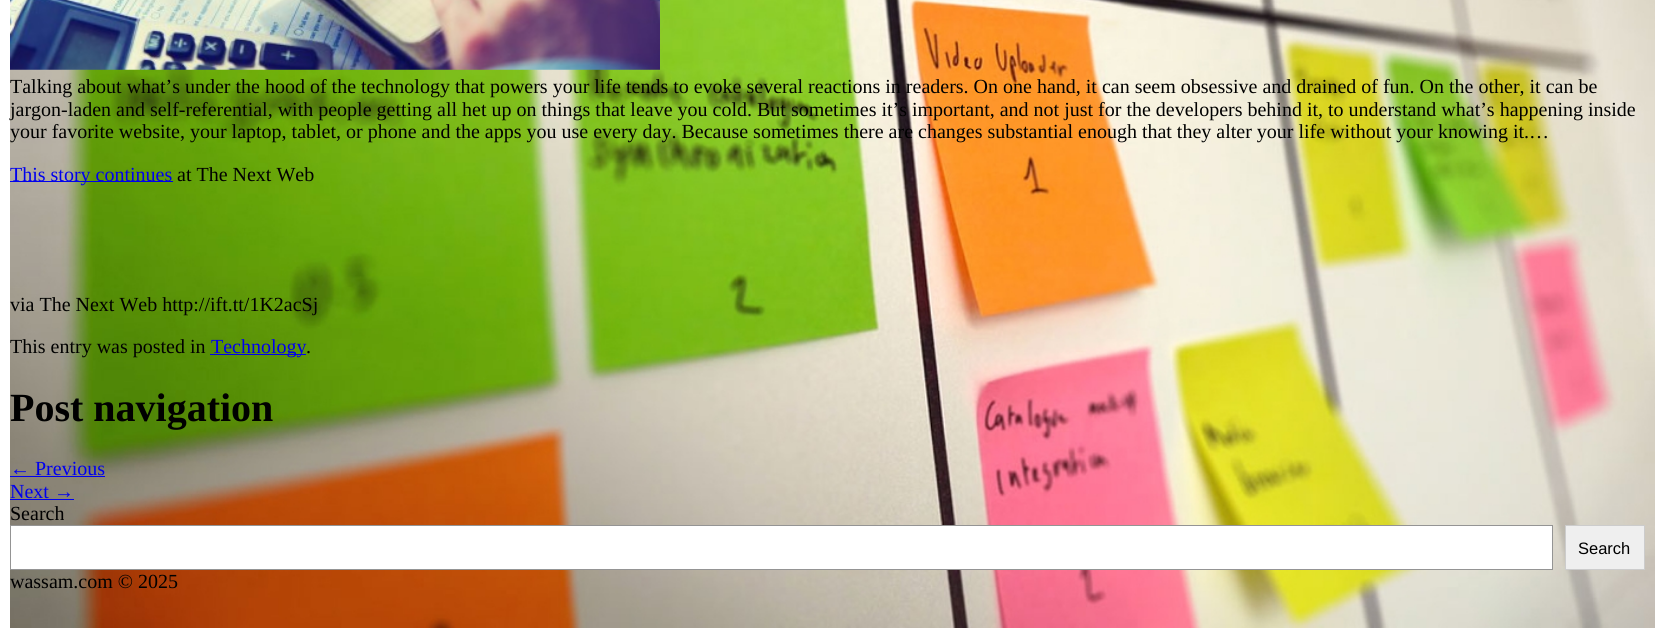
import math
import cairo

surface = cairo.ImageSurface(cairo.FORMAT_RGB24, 1655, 628)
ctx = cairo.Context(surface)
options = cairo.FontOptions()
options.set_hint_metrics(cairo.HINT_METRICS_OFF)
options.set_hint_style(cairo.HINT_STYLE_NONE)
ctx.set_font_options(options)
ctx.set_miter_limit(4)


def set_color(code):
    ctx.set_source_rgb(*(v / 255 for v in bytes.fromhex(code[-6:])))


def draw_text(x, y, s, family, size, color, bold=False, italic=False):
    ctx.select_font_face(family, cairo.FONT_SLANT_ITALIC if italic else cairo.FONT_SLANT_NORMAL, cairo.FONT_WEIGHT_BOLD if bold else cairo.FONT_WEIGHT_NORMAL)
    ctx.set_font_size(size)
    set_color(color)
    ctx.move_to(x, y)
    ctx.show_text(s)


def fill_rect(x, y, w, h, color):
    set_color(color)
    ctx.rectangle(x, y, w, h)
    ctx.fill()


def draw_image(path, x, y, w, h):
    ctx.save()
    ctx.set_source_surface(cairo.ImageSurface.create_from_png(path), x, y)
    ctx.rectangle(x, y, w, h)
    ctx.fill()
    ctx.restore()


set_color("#ffffff")
ctx.paint()
draw_image("assets/img1.png", 10, 0, 1645, 628)
draw_image("assets/img2.png", 10, 0, 650, 70)
draw_text(10, 93, "Talking about what’s under the hood of the technology that powers your life tends to evoke several reactions in readers. On one hand, it can seem obsessive and drained of fun. On the other, it can be", "Liberation Serif", 20, "#000000")
draw_text(10, 116, "jargon-laden and self-referential, with people getting all het up on things that leave you cold. But sometimes it’s important, and not just for the developers behind it, to understand what’s happening inside", "Liberation Serif", 20, "#000000")
draw_text(10, 138, "your favorite website, your laptop, tablet, or phone and the apps you use every day. Because sometimes there are changes substantial enough that they alter your life without your knowing it.…", "Liberation Serif", 20, "#000000")
fill_rect(10, 181, 163, 1, "#0000ee")
draw_text(10, 181, "This story continues", "Liberation Serif", 20, "#0000ee")
draw_text(177, 181, "at The Next Web", "Liberation Serif", 20, "#000000")
draw_text(10, 311, "via The Next Web http://ift.tt/1K2acSj", "Liberation Serif", 20, "#000000")
draw_text(10, 353, "This entry was posted in", "Liberation Serif", 20, "#000000")
fill_rect(210, 354, 96, 1, "#0000ee")
draw_text(211, 353, "Technology", "Liberation Serif", 20, "#0000ee")
draw_text(306, 353, ".", "Liberation Serif", 20, "#000000")
draw_text(10, 421, "Post navigation", "Liberation Serif", 40, "#000000", bold=True)
draw_text(10, 475, "← Previous", "Liberation Serif", 20, "#0000ee")
fill_rect(10, 476, 95, 1, "#0000ee")
draw_text(10, 498, "Next →", "Liberation Serif", 20, "#0000ee")
fill_rect(10, 499, 64, 1, "#0000ee")
draw_text(10, 520, "Search", "Liberation Serif", 20, "#000000")
set_color("#ffffff")
ctx.rectangle(10.5, 525.5, 1542, 44)
ctx.fill_preserve()
set_color("#949494")
ctx.set_line_width(1)
ctx.stroke()
set_color("#efefef")
ctx.rectangle(1565.5, 525.5, 79, 44)
ctx.fill_preserve()
set_color("#cccccc")
ctx.stroke()
draw_text(1578, 554, "Search", "Liberation Sans", 16.5, "#000000")
draw_text(10, 588, "wassam.com © 2025", "Liberation Serif", 20, "#000000")
surface.write_to_png("output.png")
